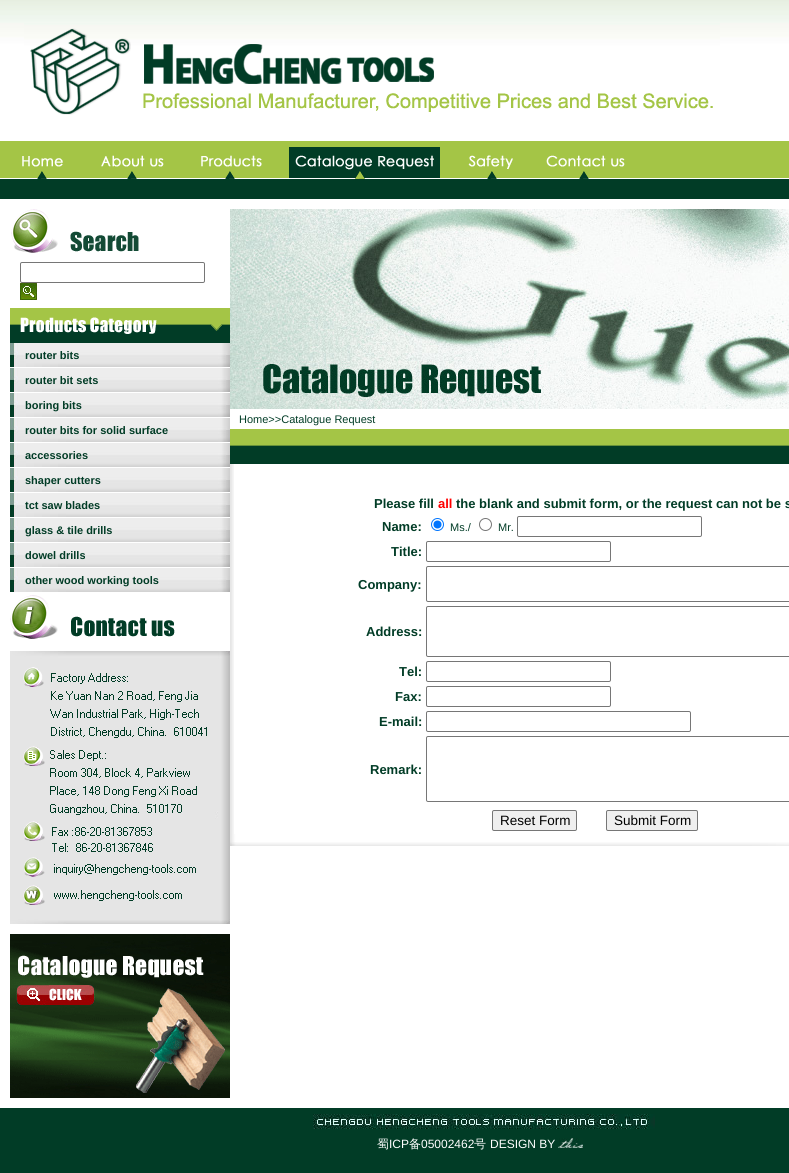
import math
import cairo

surface = cairo.ImageSurface(cairo.FORMAT_RGB24, 789, 1173)
ctx = cairo.Context(surface)
options = cairo.FontOptions()
options.set_hint_metrics(cairo.HINT_METRICS_OFF)
options.set_hint_style(cairo.HINT_STYLE_NONE)
ctx.set_font_options(options)
ctx.set_miter_limit(4)


def set_color(code):
    ctx.set_source_rgb(*(v / 255 for v in bytes.fromhex(code[-6:])))


def draw_text(x, y, s, family, size, color, bold=False, italic=False):
    ctx.select_font_face(family, cairo.FONT_SLANT_ITALIC if italic else cairo.FONT_SLANT_NORMAL, cairo.FONT_WEIGHT_BOLD if bold else cairo.FONT_WEIGHT_NORMAL)
    ctx.set_font_size(size)
    set_color(color)
    ctx.move_to(x, y)
    ctx.show_text(s)


def fill_rect(x, y, w, h, color):
    set_color(color)
    ctx.rectangle(x, y, w, h)
    ctx.fill()


def rounded_rect(x, y, w, h, r):
    ctx.new_sub_path()
    for i, (u, v) in enumerate([(x + w - r, y + h - r), (x + r, y + h - r), (x + r, y + r), (x + w - r, y + r)]):
        ctx.arc(u, v, r, i * math.pi / 2, (i + 1) * math.pi / 2)
    ctx.close_path()


def draw_image(path, x, y, w, h):
    ctx.save()
    ctx.set_source_surface(cairo.ImageSurface.create_from_png(path), x, y)
    ctx.rectangle(x, y, w, h)
    ctx.fill()
    ctx.restore()


set_color("#013c26")
ctx.paint()
draw_image("assets/img1.png", 0, 0, 789, 199)
draw_image("assets/img2.png", 24, 23, 696, 92)
draw_image("assets/img3.png", 22, 156, 41, 23)
draw_image("assets/img4.png", 101, 155, 63, 24)
draw_image("assets/img5.png", 201, 155, 61, 24)
draw_image("assets/img6.png", 289, 147, 151, 32)
draw_image("assets/img7.png", 468, 155, 45, 24)
draw_image("assets/img8.png", 546, 155, 79, 24)
fill_rect(0, 199, 789, 909, "#ffffff")
draw_image("assets/img9.png", 11, 209, 128, 44)
rounded_rect(20.5, 262.5, 184, 20, 1.5)
set_color("#767676")
ctx.set_line_width(1)
ctx.stroke()
draw_image("assets/img10.png", 20, 283, 17, 17)
draw_image("assets/img11.png", 10, 308, 220, 35)
draw_image("assets/img12.png", 10, 343, 220, 8)
draw_image("assets/img13.png", 10, 351, 220, 16)
draw_text(25, 359, "router bits", "Liberation Sans", 11, "#013c26", bold=True)
draw_image("assets/img12.png", 10, 368, 220, 8)
draw_image("assets/img13.png", 10, 376, 220, 16)
draw_text(25, 384, "router bit sets", "Liberation Sans", 11, "#013c26", bold=True)
draw_image("assets/img12.png", 10, 393, 220, 8)
draw_image("assets/img13.png", 10, 401, 220, 16)
draw_text(25, 409, "boring bits", "Liberation Sans", 11, "#013c26", bold=True)
draw_image("assets/img12.png", 10, 418, 220, 8)
draw_image("assets/img13.png", 10, 426, 220, 16)
draw_text(25, 434, "router bits for solid surface", "Liberation Sans", 11, "#013c26", bold=True)
draw_image("assets/img12.png", 10, 443, 220, 8)
draw_image("assets/img13.png", 10, 451, 220, 16)
draw_text(25, 459, "accessories", "Liberation Sans", 11, "#013c26", bold=True)
draw_image("assets/img12.png", 10, 468, 220, 8)
draw_image("assets/img13.png", 10, 476, 220, 16)
draw_text(25, 484, "shaper cutters", "Liberation Sans", 11, "#013c26", bold=True)
draw_image("assets/img12.png", 10, 493, 220, 8)
draw_image("assets/img13.png", 10, 501, 220, 16)
draw_text(25, 509, "tct saw blades", "Liberation Sans", 11, "#013c26", bold=True)
draw_image("assets/img12.png", 10, 518, 220, 8)
draw_image("assets/img13.png", 10, 526, 220, 16)
draw_text(25, 534, "glass & tile drills", "Liberation Sans", 11, "#013c26", bold=True)
draw_image("assets/img12.png", 10, 543, 220, 8)
draw_image("assets/img13.png", 10, 551, 220, 16)
draw_text(25, 559, "dowel drills", "Liberation Sans", 11, "#013c26", bold=True)
draw_image("assets/img12.png", 10, 568, 220, 8)
draw_image("assets/img13.png", 10, 576, 220, 16)
draw_text(25, 584, "other wood working tools", "Liberation Sans", 11, "#013c26", bold=True)
draw_image("assets/img14.png", 10, 595, 165, 44)
draw_image("assets/img15.png", 10, 651, 220, 273)
draw_image("assets/img16.png", 10, 934, 220, 164)
draw_image("assets/img17.png", 230, 209, 559, 200)
draw_text(239, 423, "Home>>Catalogue Request", "Liberation Sans", 11, "#013c26")
draw_image("assets/img18.png", 230, 429, 559, 35)
draw_image("assets/img19.png", 230, 464, 4, 370)
draw_text(374, 508, "Please fill", "Liberation Sans", 13, "#013c26", bold=True)
draw_text(438, 508, "all", "Liberation Sans", 13, "#ff0000", bold=True)
draw_text(456, 508, "the blank and submit form, or the request can not be s", "Liberation Sans", 13, "#013c26", bold=True)
draw_text(382, 531, "Name:", "Liberation Sans", 13, "#013c26", bold=True)
ctx.new_path()
ctx.arc(437.5, 524.5, 6, 0, 2 * math.pi)
set_color("#0075ff")
ctx.stroke()
ctx.arc(437.5, 524.5, 4, 0, 2 * math.pi)
ctx.fill()
draw_text(450, 531, "Ms./", "Liberation Sans", 11, "#013c26")
ctx.new_path()
ctx.arc(485.5, 524.5, 6, 0, 2 * math.pi)
set_color("#767676")
ctx.stroke()
draw_text(498, 531, "Mr.", "Liberation Sans", 11, "#013c26")
rounded_rect(517.5, 516.5, 184, 20, 1.5)
set_color("#767676")
ctx.stroke()
draw_text(391, 556, "Title:", "Liberation Sans", 13, "#013c26", bold=True)
rounded_rect(426.5, 541.5, 184, 20, 1.5)
set_color("#767676")
ctx.stroke()
draw_text(358, 589, "Company:", "Liberation Sans", 13, "#013c26", bold=True)
rounded_rect(426.5, 566.5, 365, 35, 1.5)
set_color("#767676")
ctx.stroke()
draw_text(366, 636, "Address:", "Liberation Sans", 13, "#013c26", bold=True)
rounded_rect(426.5, 606.5, 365, 50, 1.5)
set_color("#767676")
ctx.stroke()
draw_text(399, 676, "Tel:", "Liberation Sans", 13, "#013c26", bold=True)
rounded_rect(426.5, 661.5, 184, 20, 1.5)
set_color("#767676")
ctx.stroke()
draw_text(395, 701, "Fax:", "Liberation Sans", 13, "#013c26", bold=True)
rounded_rect(426.5, 686.5, 184, 20, 1.5)
set_color("#767676")
ctx.stroke()
draw_text(379, 726, "E-mail:", "Liberation Sans", 13, "#013c26", bold=True)
rounded_rect(426.5, 711.5, 264, 20, 1.5)
set_color("#767676")
ctx.stroke()
draw_text(370, 774, "Remark:", "Liberation Sans", 13, "#013c26", bold=True)
rounded_rect(426.5, 736.5, 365, 65, 1.5)
set_color("#767676")
ctx.stroke()
set_color("#efefef")
rounded_rect(492.5, 810.5, 84, 20, 1.5)
ctx.fill_preserve()
set_color("#767676")
ctx.stroke()
draw_text(500, 825, "Reset Form", "Liberation Sans", 13.5, "#000000")
set_color("#efefef")
rounded_rect(606.5, 810.5, 91, 20, 1.5)
ctx.fill_preserve()
set_color("#767676")
ctx.stroke()
draw_text(614, 825, "Submit Form", "Liberation Sans", 13.5, "#000000")
draw_image("assets/img20.png", 230, 834, 559, 12)
draw_image("assets/img21.png", 313, 1114, 342, 15)
draw_text(377, 1148, "蜀", "WenQuanYi Zen Hei Medium", 12, "#ffffff")
draw_text(389, 1148, "ICP", "Liberation Sans", 12, "#ffffff")
draw_text(409, 1148, "备", "WenQuanYi Zen Hei Medium", 12, "#ffffff")
draw_text(421, 1148, "05002462", "Liberation Sans", 12, "#ffffff")
draw_text(474, 1148, "号", "WenQuanYi Zen Hei Medium", 12, "#ffffff")
draw_text(490, 1148, "DESIGN BY", "Liberation Sans", 12, "#ffffff")
draw_image("assets/img22.png", 558, 1138, 25, 10)
surface.write_to_png("output.png")
